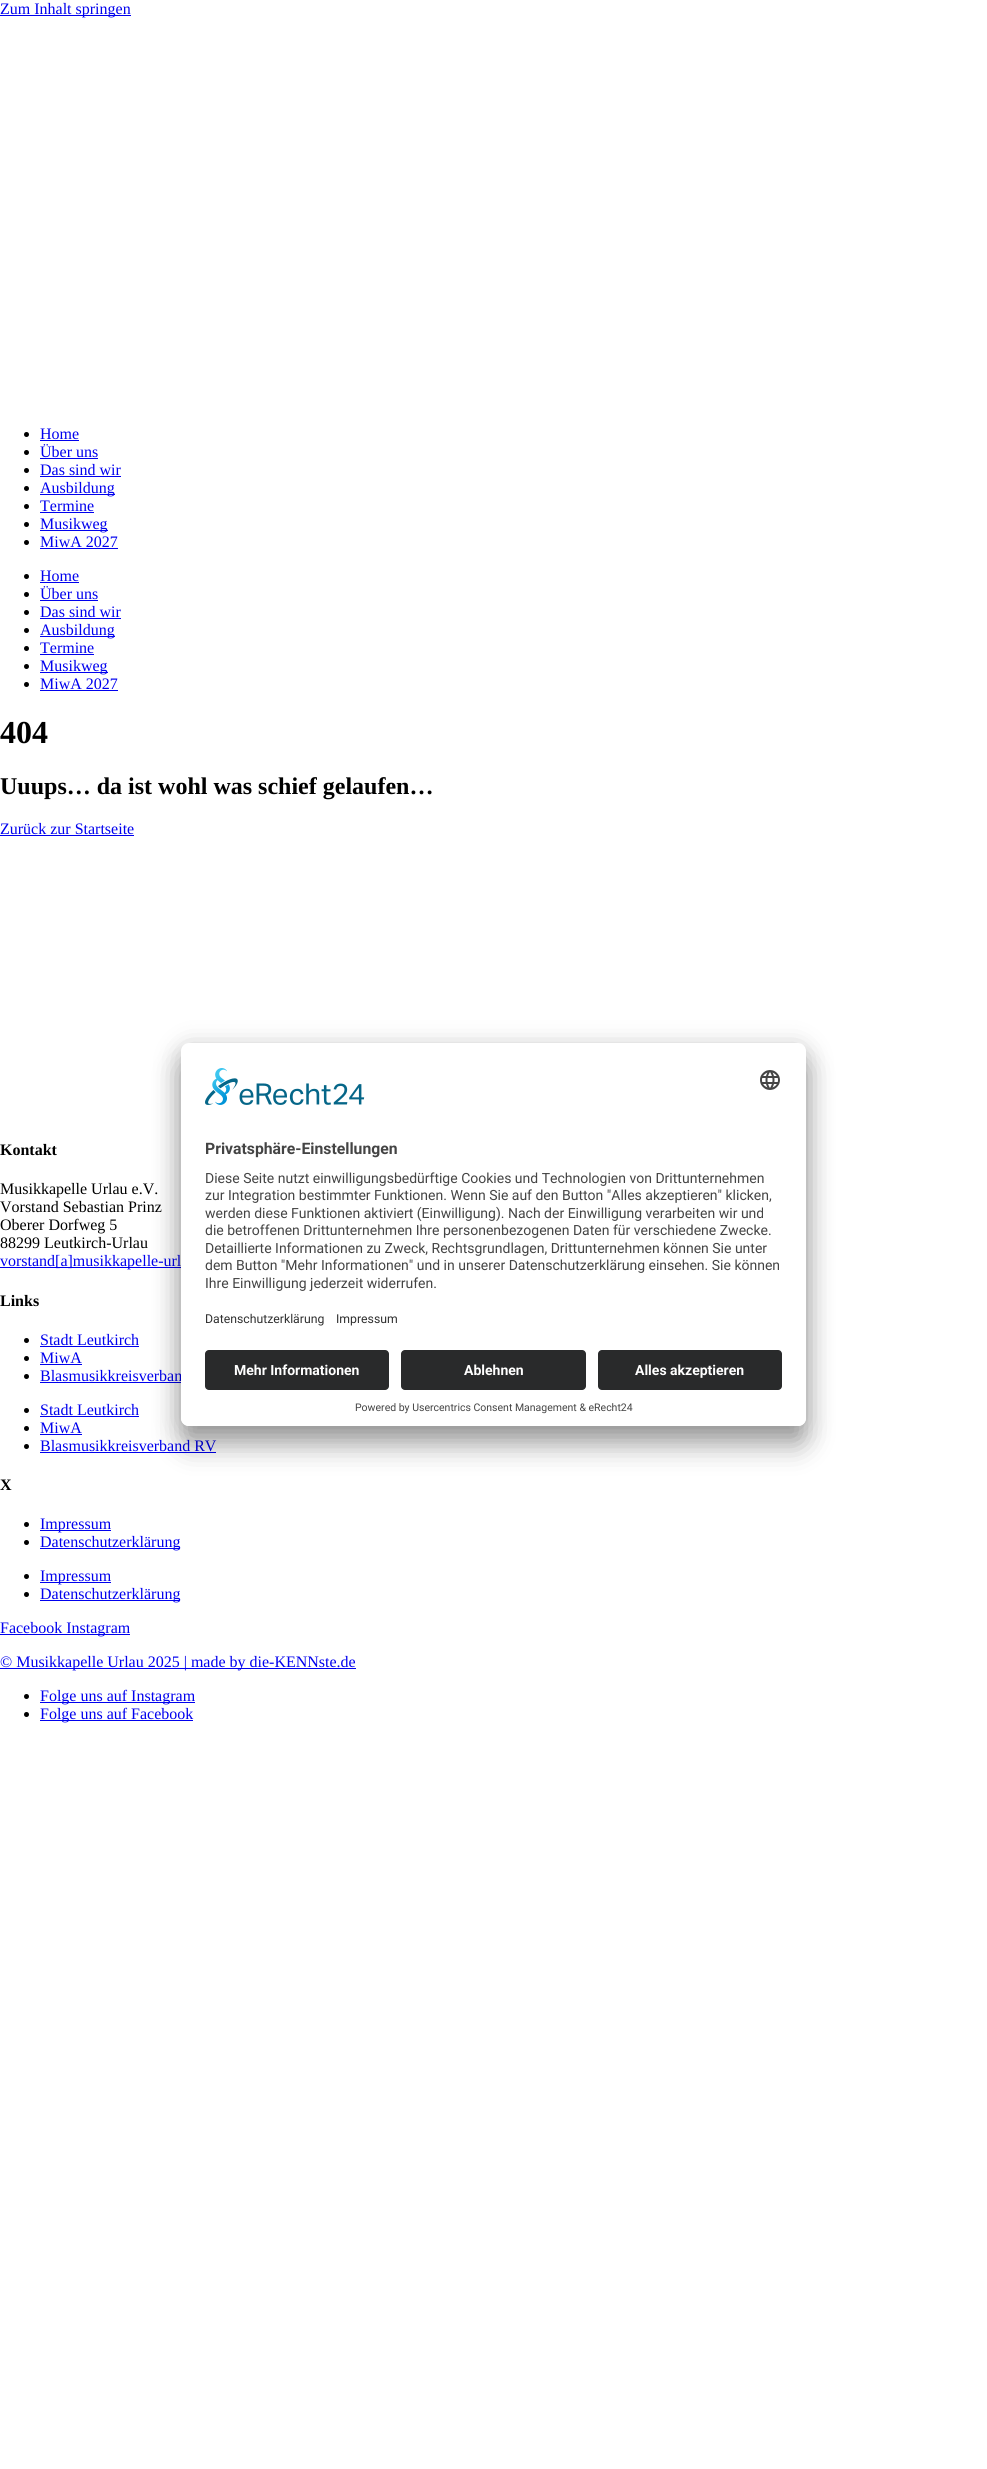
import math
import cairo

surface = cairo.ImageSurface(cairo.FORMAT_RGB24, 987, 2469)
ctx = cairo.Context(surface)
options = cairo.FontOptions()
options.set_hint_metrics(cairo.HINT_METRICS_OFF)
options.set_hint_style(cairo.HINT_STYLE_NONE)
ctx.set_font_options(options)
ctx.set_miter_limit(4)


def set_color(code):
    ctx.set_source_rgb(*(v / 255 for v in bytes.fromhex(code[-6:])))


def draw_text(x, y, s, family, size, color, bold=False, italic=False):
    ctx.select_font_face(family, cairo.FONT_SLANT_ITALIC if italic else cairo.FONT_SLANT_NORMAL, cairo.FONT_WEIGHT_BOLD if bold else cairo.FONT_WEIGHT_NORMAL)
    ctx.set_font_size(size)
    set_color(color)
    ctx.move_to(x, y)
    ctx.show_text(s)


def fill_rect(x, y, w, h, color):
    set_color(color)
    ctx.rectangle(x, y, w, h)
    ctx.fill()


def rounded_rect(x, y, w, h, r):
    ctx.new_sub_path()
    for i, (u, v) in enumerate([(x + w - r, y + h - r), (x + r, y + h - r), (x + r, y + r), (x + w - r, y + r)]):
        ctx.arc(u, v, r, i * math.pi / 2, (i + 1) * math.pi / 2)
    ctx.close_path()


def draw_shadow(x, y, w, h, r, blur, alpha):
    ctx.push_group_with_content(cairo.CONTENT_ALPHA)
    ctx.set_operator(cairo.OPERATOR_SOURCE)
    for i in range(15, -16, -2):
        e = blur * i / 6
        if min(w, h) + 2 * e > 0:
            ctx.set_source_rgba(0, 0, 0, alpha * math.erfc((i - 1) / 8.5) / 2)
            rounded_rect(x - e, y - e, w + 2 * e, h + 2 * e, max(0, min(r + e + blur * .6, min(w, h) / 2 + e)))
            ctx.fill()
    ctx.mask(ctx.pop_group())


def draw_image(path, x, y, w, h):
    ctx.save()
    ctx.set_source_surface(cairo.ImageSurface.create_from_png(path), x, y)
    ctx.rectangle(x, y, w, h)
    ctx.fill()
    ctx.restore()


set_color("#ffffff")
ctx.paint()
fill_rect(0, 15, 131, 1, "#0000ee")
draw_text(0, 14, "Zum Inhalt springen", "Liberation Serif", 16, "#0000ee")
set_color("#000000")
ctx.new_path()
ctx.arc(26.5, 434.5, 2.5, 0, 2 * math.pi)
ctx.fill()
draw_text(40, 439, "Home", "Liberation Serif", 16, "#0000ee")
fill_rect(40, 440, 39, 1, "#0000ee")
set_color("#000000")
ctx.new_path()
ctx.arc(26.5, 452.5, 2.5, 0, 2 * math.pi)
ctx.fill()
draw_text(40, 457, "Über uns", "Liberation Serif", 16, "#0000ee")
fill_rect(40, 458, 58, 1, "#0000ee")
set_color("#000000")
ctx.new_path()
ctx.arc(26.5, 470.5, 2.5, 0, 2 * math.pi)
ctx.fill()
draw_text(40, 475, "Das sind wir", "Liberation Serif", 16, "#0000ee")
fill_rect(40, 476, 81, 1, "#0000ee")
set_color("#000000")
ctx.new_path()
ctx.arc(26.5, 488.5, 2.5, 0, 2 * math.pi)
ctx.fill()
fill_rect(40, 494, 75, 1, "#0000ee")
draw_text(40, 493, "Ausbildung", "Liberation Serif", 16, "#0000ee")
set_color("#000000")
ctx.new_path()
ctx.arc(26.5, 506.5, 2.5, 0, 2 * math.pi)
ctx.fill()
draw_text(40, 511, "Termine", "Liberation Serif", 16, "#0000ee")
fill_rect(40, 512, 54, 1, "#0000ee")
set_color("#000000")
ctx.new_path()
ctx.arc(26.5, 524.5, 2.5, 0, 2 * math.pi)
ctx.fill()
fill_rect(40, 530, 68, 1, "#0000ee")
draw_text(40, 529, "Musikweg", "Liberation Serif", 16, "#0000ee")
set_color("#000000")
ctx.new_path()
ctx.arc(26.5, 542.5, 2.5, 0, 2 * math.pi)
ctx.fill()
draw_text(40, 547, "MiwA 2027", "Liberation Serif", 16, "#0000ee")
fill_rect(40, 548, 78, 1, "#0000ee")
set_color("#000000")
ctx.new_path()
ctx.arc(26.5, 576.5, 2.5, 0, 2 * math.pi)
ctx.fill()
draw_text(40, 581, "Home", "Liberation Serif", 16, "#0000ee")
fill_rect(40, 582, 39, 1, "#0000ee")
set_color("#000000")
ctx.new_path()
ctx.arc(26.5, 594.5, 2.5, 0, 2 * math.pi)
ctx.fill()
draw_text(40, 599, "Über uns", "Liberation Serif", 16, "#0000ee")
fill_rect(40, 600, 58, 1, "#0000ee")
set_color("#000000")
ctx.new_path()
ctx.arc(26.5, 612.5, 2.5, 0, 2 * math.pi)
ctx.fill()
draw_text(40, 617, "Das sind wir", "Liberation Serif", 16, "#0000ee")
fill_rect(40, 618, 81, 1, "#0000ee")
set_color("#000000")
ctx.new_path()
ctx.arc(26.5, 630.5, 2.5, 0, 2 * math.pi)
ctx.fill()
fill_rect(40, 636, 75, 1, "#0000ee")
draw_text(40, 635, "Ausbildung", "Liberation Serif", 16, "#0000ee")
set_color("#000000")
ctx.new_path()
ctx.arc(26.5, 648.5, 2.5, 0, 2 * math.pi)
ctx.fill()
draw_text(40, 653, "Termine", "Liberation Serif", 16, "#0000ee")
fill_rect(40, 654, 54, 1, "#0000ee")
set_color("#000000")
ctx.new_path()
ctx.arc(26.5, 666.5, 2.5, 0, 2 * math.pi)
ctx.fill()
fill_rect(40, 672, 68, 1, "#0000ee")
draw_text(40, 671, "Musikweg", "Liberation Serif", 16, "#0000ee")
set_color("#000000")
ctx.new_path()
ctx.arc(26.5, 684.5, 2.5, 0, 2 * math.pi)
ctx.fill()
draw_text(40, 689, "MiwA 2027", "Liberation Serif", 16, "#0000ee")
fill_rect(40, 690, 78, 1, "#0000ee")
draw_text(0, 743, "404", "Liberation Serif", 32, "#000000", bold=True)
draw_text(0, 794, "Uuups… da ist wohl was schief gelaufen…", "Liberation Serif", 24, "#000000", bold=True)
draw_text(0, 834, "Zurück zur Startseite", "Liberation Serif", 16, "#0000ee")
fill_rect(0, 835, 134, 1, "#0000ee")
draw_text(0, 1155, "Kontakt", "Liberation Serif", 16, "#000000", bold=True)
draw_text(0, 1194, "Musikkapelle Urlau e.V.", "Liberation Serif", 16, "#000000")
draw_text(0, 1212, "Vorstand Sebastian Prinz", "Liberation Serif", 16, "#000000")
draw_text(0, 1230, "Oberer Dorfweg 5", "Liberation Serif", 16, "#000000")
draw_text(0, 1248, "88299 Leutkirch-Urlau", "Liberation Serif", 16, "#000000")
fill_rect(0, 1267, 181, 1, "#0000ee")
draw_text(0, 1266, "vorstand[a]musikkapelle-url", "Liberation Serif", 16, "#0000ee")
draw_text(0, 1306, "Links", "Liberation Serif", 16, "#000000", bold=True)
ctx.new_path()
ctx.arc(26.5, 1340.5, 2.5, 0, 2 * math.pi)
ctx.fill()
draw_text(40, 1345, "Stadt Leutkirch", "Liberation Serif", 16, "#0000ee")
fill_rect(40, 1346, 99, 1, "#0000ee")
set_color("#000000")
ctx.new_path()
ctx.arc(26.5, 1358.5, 2.5, 0, 2 * math.pi)
ctx.fill()
draw_text(40, 1363, "MiwA", "Liberation Serif", 16, "#0000ee")
fill_rect(40, 1364, 42, 1, "#0000ee")
set_color("#000000")
ctx.new_path()
ctx.arc(26.5, 1376.5, 2.5, 0, 2 * math.pi)
ctx.fill()
draw_text(40, 1381, "Blasmusikkreisverban", "Liberation Serif", 16, "#0000ee")
fill_rect(40, 1382, 141, 1, "#0000ee")
set_color("#000000")
ctx.new_path()
ctx.arc(26.5, 1410.5, 2.5, 0, 2 * math.pi)
ctx.fill()
draw_text(40, 1415, "Stadt Leutkirch", "Liberation Serif", 16, "#0000ee")
fill_rect(40, 1416, 99, 1, "#0000ee")
set_color("#000000")
ctx.new_path()
ctx.arc(26.5, 1428.5, 2.5, 0, 2 * math.pi)
ctx.fill()
draw_text(40, 1433, "MiwA", "Liberation Serif", 16, "#0000ee")
fill_rect(40, 1434, 42, 1, "#0000ee")
set_color("#000000")
ctx.new_path()
ctx.arc(26.5, 1446.5, 2.5, 0, 2 * math.pi)
ctx.fill()
draw_text(40, 1451, "Blasmusikkreisverband RV", "Liberation Serif", 16, "#0000ee")
fill_rect(40, 1452, 176, 1, "#0000ee")
draw_text(0, 1490, "X", "Liberation Serif", 16, "#000000", bold=True)
ctx.new_path()
ctx.arc(26.5, 1524.5, 2.5, 0, 2 * math.pi)
ctx.fill()
fill_rect(40, 1530, 71, 1, "#0000ee")
draw_text(40, 1529, "Impressum", "Liberation Serif", 16, "#0000ee")
set_color("#000000")
ctx.new_path()
ctx.arc(26.5, 1542.5, 2.5, 0, 2 * math.pi)
ctx.fill()
fill_rect(40, 1548, 140, 1, "#0000ee")
draw_text(40, 1547, "Datenschutzerklärung", "Liberation Serif", 16, "#0000ee")
set_color("#000000")
ctx.new_path()
ctx.arc(26.5, 1576.5, 2.5, 0, 2 * math.pi)
ctx.fill()
fill_rect(40, 1582, 71, 1, "#0000ee")
draw_text(40, 1581, "Impressum", "Liberation Serif", 16, "#0000ee")
set_color("#000000")
ctx.new_path()
ctx.arc(26.5, 1594.5, 2.5, 0, 2 * math.pi)
ctx.fill()
fill_rect(40, 1600, 140, 1, "#0000ee")
draw_text(40, 1599, "Datenschutzerklärung", "Liberation Serif", 16, "#0000ee")
fill_rect(0, 1634, 130, 1, "#0000ee")
draw_text(0, 1633, "Facebook Instagram", "Liberation Serif", 16, "#0000ee")
fill_rect(0, 1668, 356, 1, "#0000ee")
draw_text(0, 1667, "© Musikkapelle Urlau 2025 | made by die-KENNste.de", "Liberation Serif", 16, "#0000ee")
set_color("#000000")
draw_shadow(181, 1063, 625, 383, 8, 14, 0.3)
draw_shadow(181, 1048, 625, 383, 8, 13, 0.22)
set_color("#ffffff")
rounded_rect(181, 1043, 625, 383, 8)
ctx.fill()
draw_image("assets/img1.png", 205, 1068, 160, 37)
draw_image("assets/img2.png", 760, 1070, 20, 20)
draw_text(205, 1154, "Privatsphäre-Einstellungen", "Roboto", 15.75, "#444444", bold=True)
draw_text(205, 1183, "Diese Seite nutzt einwilligungsbedürftige Cookies und Technologien von Drittunternehmen", "Roboto", 14, "#444444")
draw_text(205, 1200, "zur Integration bestimmter Funktionen. Wenn Sie auf den Button \"Alles akzeptieren\" klicken,", "Roboto", 14, "#444444")
draw_text(205, 1218, "werden diese Funktionen aktiviert (Einwilligung). Nach der Einwilligung verarbeiten wir und", "Roboto", 14, "#444444")
draw_text(205, 1235, "die betroffenen Drittunternehmen Ihre personenbezogenen Daten für verschiedene Zwecke.", "Roboto", 14, "#444444")
draw_text(205, 1253, "Detaillierte Informationen zu Zweck, Rechtsgrundlagen, Drittunternehmen können Sie unter", "Roboto", 14, "#444444")
draw_text(205, 1270, "dem Button \"Mehr Informationen\" und in unserer Datenschutzerklärung einsehen. Sie können", "Roboto", 14, "#444444")
draw_text(205, 1288, "Ihre Einwilligung jederzeit widerrufen.", "Roboto", 14, "#444444")
draw_text(205, 1323, "Datenschutzerklärung", "Roboto", 12.25, "#303030")
draw_text(336, 1323, "Impressum", "Roboto", 12.25, "#303030")
set_color("#ffffff")
ctx.new_path()
ctx.move_to(181, 1342)
ctx.line_to(806, 1342)
ctx.line_to(806, 1418)
ctx.curve_to(806, 1422.5, 802.5, 1426, 798, 1426)
ctx.line_to(189, 1426)
ctx.curve_to(184.5, 1426, 181, 1422.5, 181, 1418)
ctx.close_path()
ctx.fill()
set_color("#292a2b")
rounded_rect(205, 1350, 184, 40, 4)
ctx.fill()
draw_text(234, 1375, "Mehr Informationen", "Roboto", 14, "#ffffff", bold=True)
set_color("#292a2b")
rounded_rect(401, 1350, 185, 40, 4)
ctx.fill()
draw_text(464, 1375, "Ablehnen", "Roboto", 14, "#ffffff", bold=True)
set_color("#292a2b")
rounded_rect(598, 1350, 184, 40, 4)
ctx.fill()
draw_text(635, 1375, "Alles akzeptieren", "Roboto", 14, "#ffffff", bold=True)
draw_text(355, 1411, "Powered by Usercentrics Consent Management & eRecht24", "Roboto", 10.5, "#444444")
set_color("#000000")
ctx.new_path()
ctx.arc(26.5, 1696.5, 2.5, 0, 2 * math.pi)
ctx.fill()
fill_rect(40, 1702, 155, 1, "#0000ee")
draw_text(40, 1701, "Folge uns auf Instagram", "Liberation Serif", 16, "#0000ee")
set_color("#000000")
ctx.new_path()
ctx.arc(26.5, 1714.5, 2.5, 0, 2 * math.pi)
ctx.fill()
fill_rect(40, 1720, 153, 1, "#0000ee")
draw_text(40, 1719, "Folge uns auf Facebook", "Liberation Serif", 16, "#0000ee")
surface.write_to_png("output.png")
